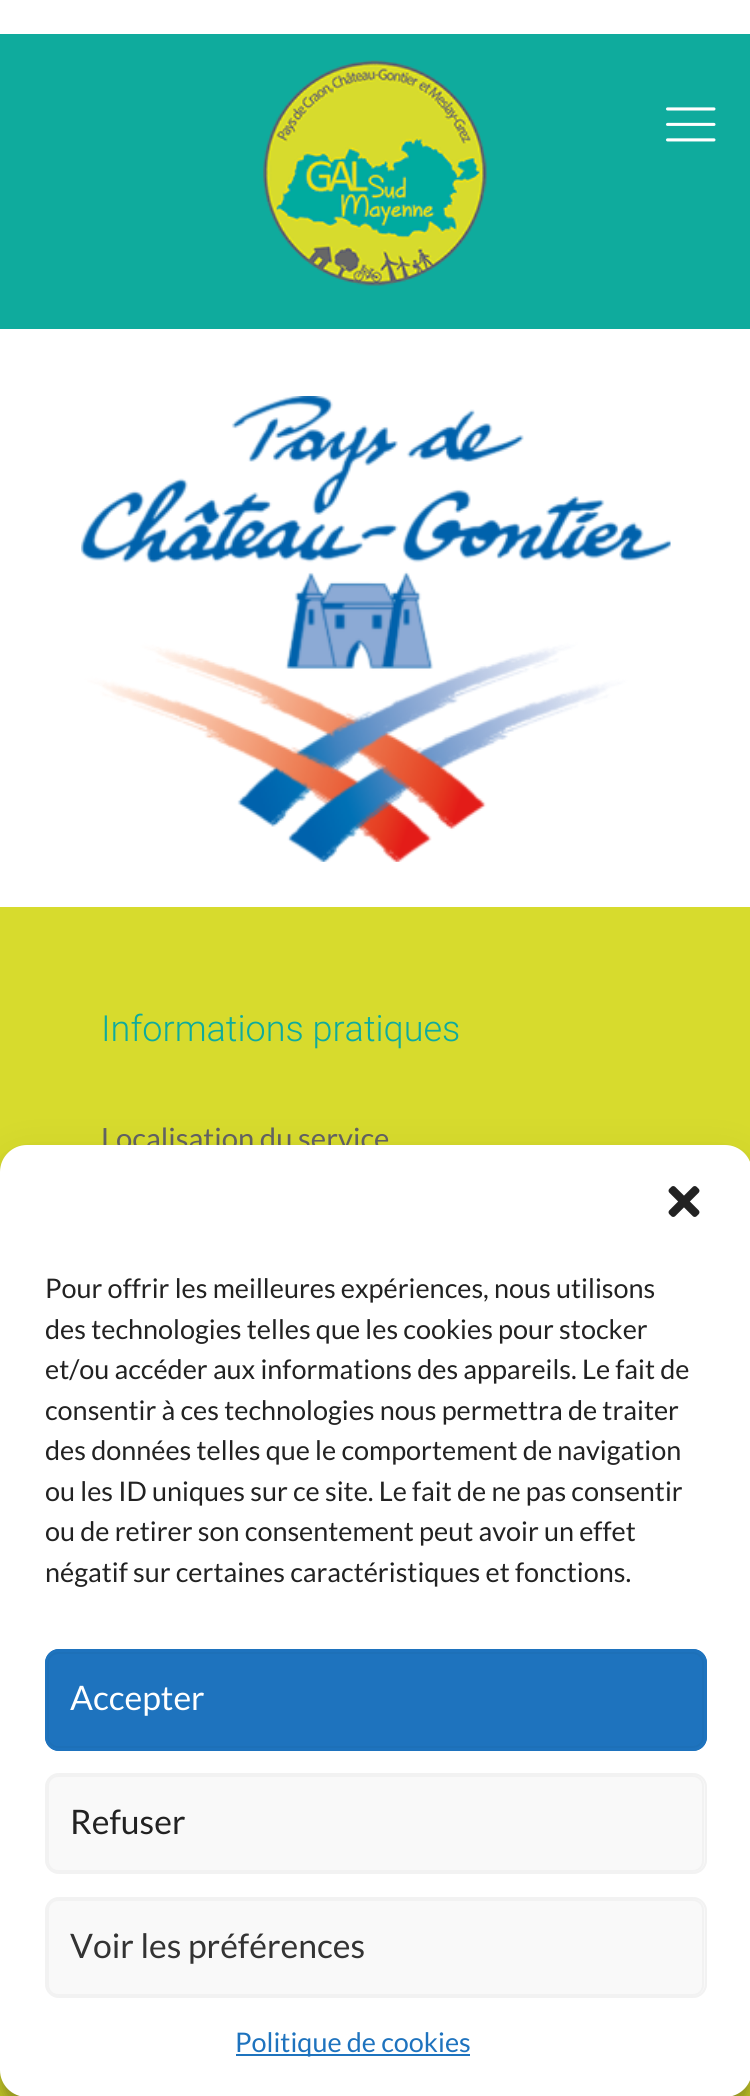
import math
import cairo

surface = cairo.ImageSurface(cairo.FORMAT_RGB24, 750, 2096)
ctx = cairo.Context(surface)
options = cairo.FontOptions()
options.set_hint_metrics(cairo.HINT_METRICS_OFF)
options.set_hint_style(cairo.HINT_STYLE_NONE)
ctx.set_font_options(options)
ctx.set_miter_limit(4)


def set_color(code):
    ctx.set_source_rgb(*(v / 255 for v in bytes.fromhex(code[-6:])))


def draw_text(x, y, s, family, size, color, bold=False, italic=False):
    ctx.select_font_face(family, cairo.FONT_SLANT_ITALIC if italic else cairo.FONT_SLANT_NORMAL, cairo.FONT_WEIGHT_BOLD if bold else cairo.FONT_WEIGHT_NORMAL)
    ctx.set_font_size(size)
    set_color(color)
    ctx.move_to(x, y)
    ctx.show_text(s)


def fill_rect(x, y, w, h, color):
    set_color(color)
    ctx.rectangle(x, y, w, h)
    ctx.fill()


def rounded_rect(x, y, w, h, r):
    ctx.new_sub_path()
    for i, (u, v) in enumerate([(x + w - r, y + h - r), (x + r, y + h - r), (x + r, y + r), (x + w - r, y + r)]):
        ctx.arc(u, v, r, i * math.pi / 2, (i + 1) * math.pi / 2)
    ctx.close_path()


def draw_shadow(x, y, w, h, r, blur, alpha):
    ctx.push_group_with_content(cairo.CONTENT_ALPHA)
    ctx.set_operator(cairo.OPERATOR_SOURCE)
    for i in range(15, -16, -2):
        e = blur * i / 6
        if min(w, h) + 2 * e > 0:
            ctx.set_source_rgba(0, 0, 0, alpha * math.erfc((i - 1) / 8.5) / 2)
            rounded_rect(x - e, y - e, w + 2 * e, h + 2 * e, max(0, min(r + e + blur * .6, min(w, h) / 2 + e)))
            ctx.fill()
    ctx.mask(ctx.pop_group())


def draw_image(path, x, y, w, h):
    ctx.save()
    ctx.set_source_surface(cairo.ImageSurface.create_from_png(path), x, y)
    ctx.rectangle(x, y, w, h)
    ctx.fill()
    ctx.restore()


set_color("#ffffff")
ctx.paint()
fill_rect(0, 34, 750, 295, "#0fab9d")
draw_image("assets/img1.png", 263, 60, 224, 226)
draw_image("assets/img2.png", 666, 107, 50, 35)
draw_image("assets/img3.png", 81, 396, 590, 466)
fill_rect(0, 907, 750, 1189, "#d7db2d")
draw_text(101, 1041, "Informations pratiques", "Roboto Light", 36, "#0fab9d")
draw_text(101, 1149, "Localisation du service", "Lato", 29.25, "#636363")
set_color("#000000")
draw_shadow(0, 1159, 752, 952, 27, 7, 0.23)
draw_shadow(0, 1168, 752, 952, 27, 22.5, 0.19)
set_color("#ffffff")
rounded_rect(0, 1145, 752, 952, 27)
ctx.fill()
draw_image("assets/img4.png", 668, 1186, 32, 31)
draw_text(45, 1298, "Pour offrir les meilleures expériences, nous utilisons", "Lato", 27, "#222222")
draw_text(45, 1339, "des technologies telles que les cookies pour stocker", "Lato", 27, "#222222")
draw_text(45, 1379, "et/ou accéder aux informations des appareils. Le fait de", "Lato", 27, "#222222")
draw_text(45, 1420, "consentir à ces technologies nous permettra de traiter", "Lato", 27, "#222222")
draw_text(45, 1460, "des données telles que le comportement de navigation", "Lato", 27, "#222222")
draw_text(45, 1501, "ou les ID uniques sur ce site. Le fait de ne pas consentir", "Lato", 27, "#222222")
draw_text(45, 1541, "ou de retirer son consentement peut avoir un effet", "Lato", 27, "#222222")
draw_text(45, 1582, "négatif sur certaines caractéristiques et fonctions.", "Lato", 27, "#222222")
set_color("#1e73be")
rounded_rect(45, 1649, 662, 102, 14)
ctx.fill()
rounded_rect(48, 1653, 655, 94, 10)
set_color("#1d70b8")
ctx.stroke()
rounded_rect(46, 1650, 660, 100, 13)
set_color("#1e73be")
ctx.stroke()
draw_text(70, 1710, "Accepter", "Lato", 33.75, "#ffffff")
set_color("#f9f9f9")
rounded_rect(45, 1773, 662, 101, 14)
ctx.fill()
rounded_rect(48, 1776, 655, 95, 10)
set_color("#f2f2f2")
ctx.stroke()
rounded_rect(46, 1774, 660, 99, 13)
ctx.stroke()
draw_text(70, 1834, "Refuser", "Lato", 33.75, "#222222")
set_color("#f9f9f9")
rounded_rect(45, 1897, 662, 101, 14)
ctx.fill()
rounded_rect(48, 1900, 655, 95, 10)
set_color("#f2f2f2")
ctx.stroke()
rounded_rect(46, 1898, 660, 99, 13)
ctx.stroke()
draw_text(70, 1958, "Voir les préférences", "Lato", 33.75, "#333333")
fill_rect(236, 2054, 234, 2, "#1e73be")
draw_text(235, 2052, "Politique de cookies", "Lato", 27, "#1e73be")
surface.write_to_png("output.png")
